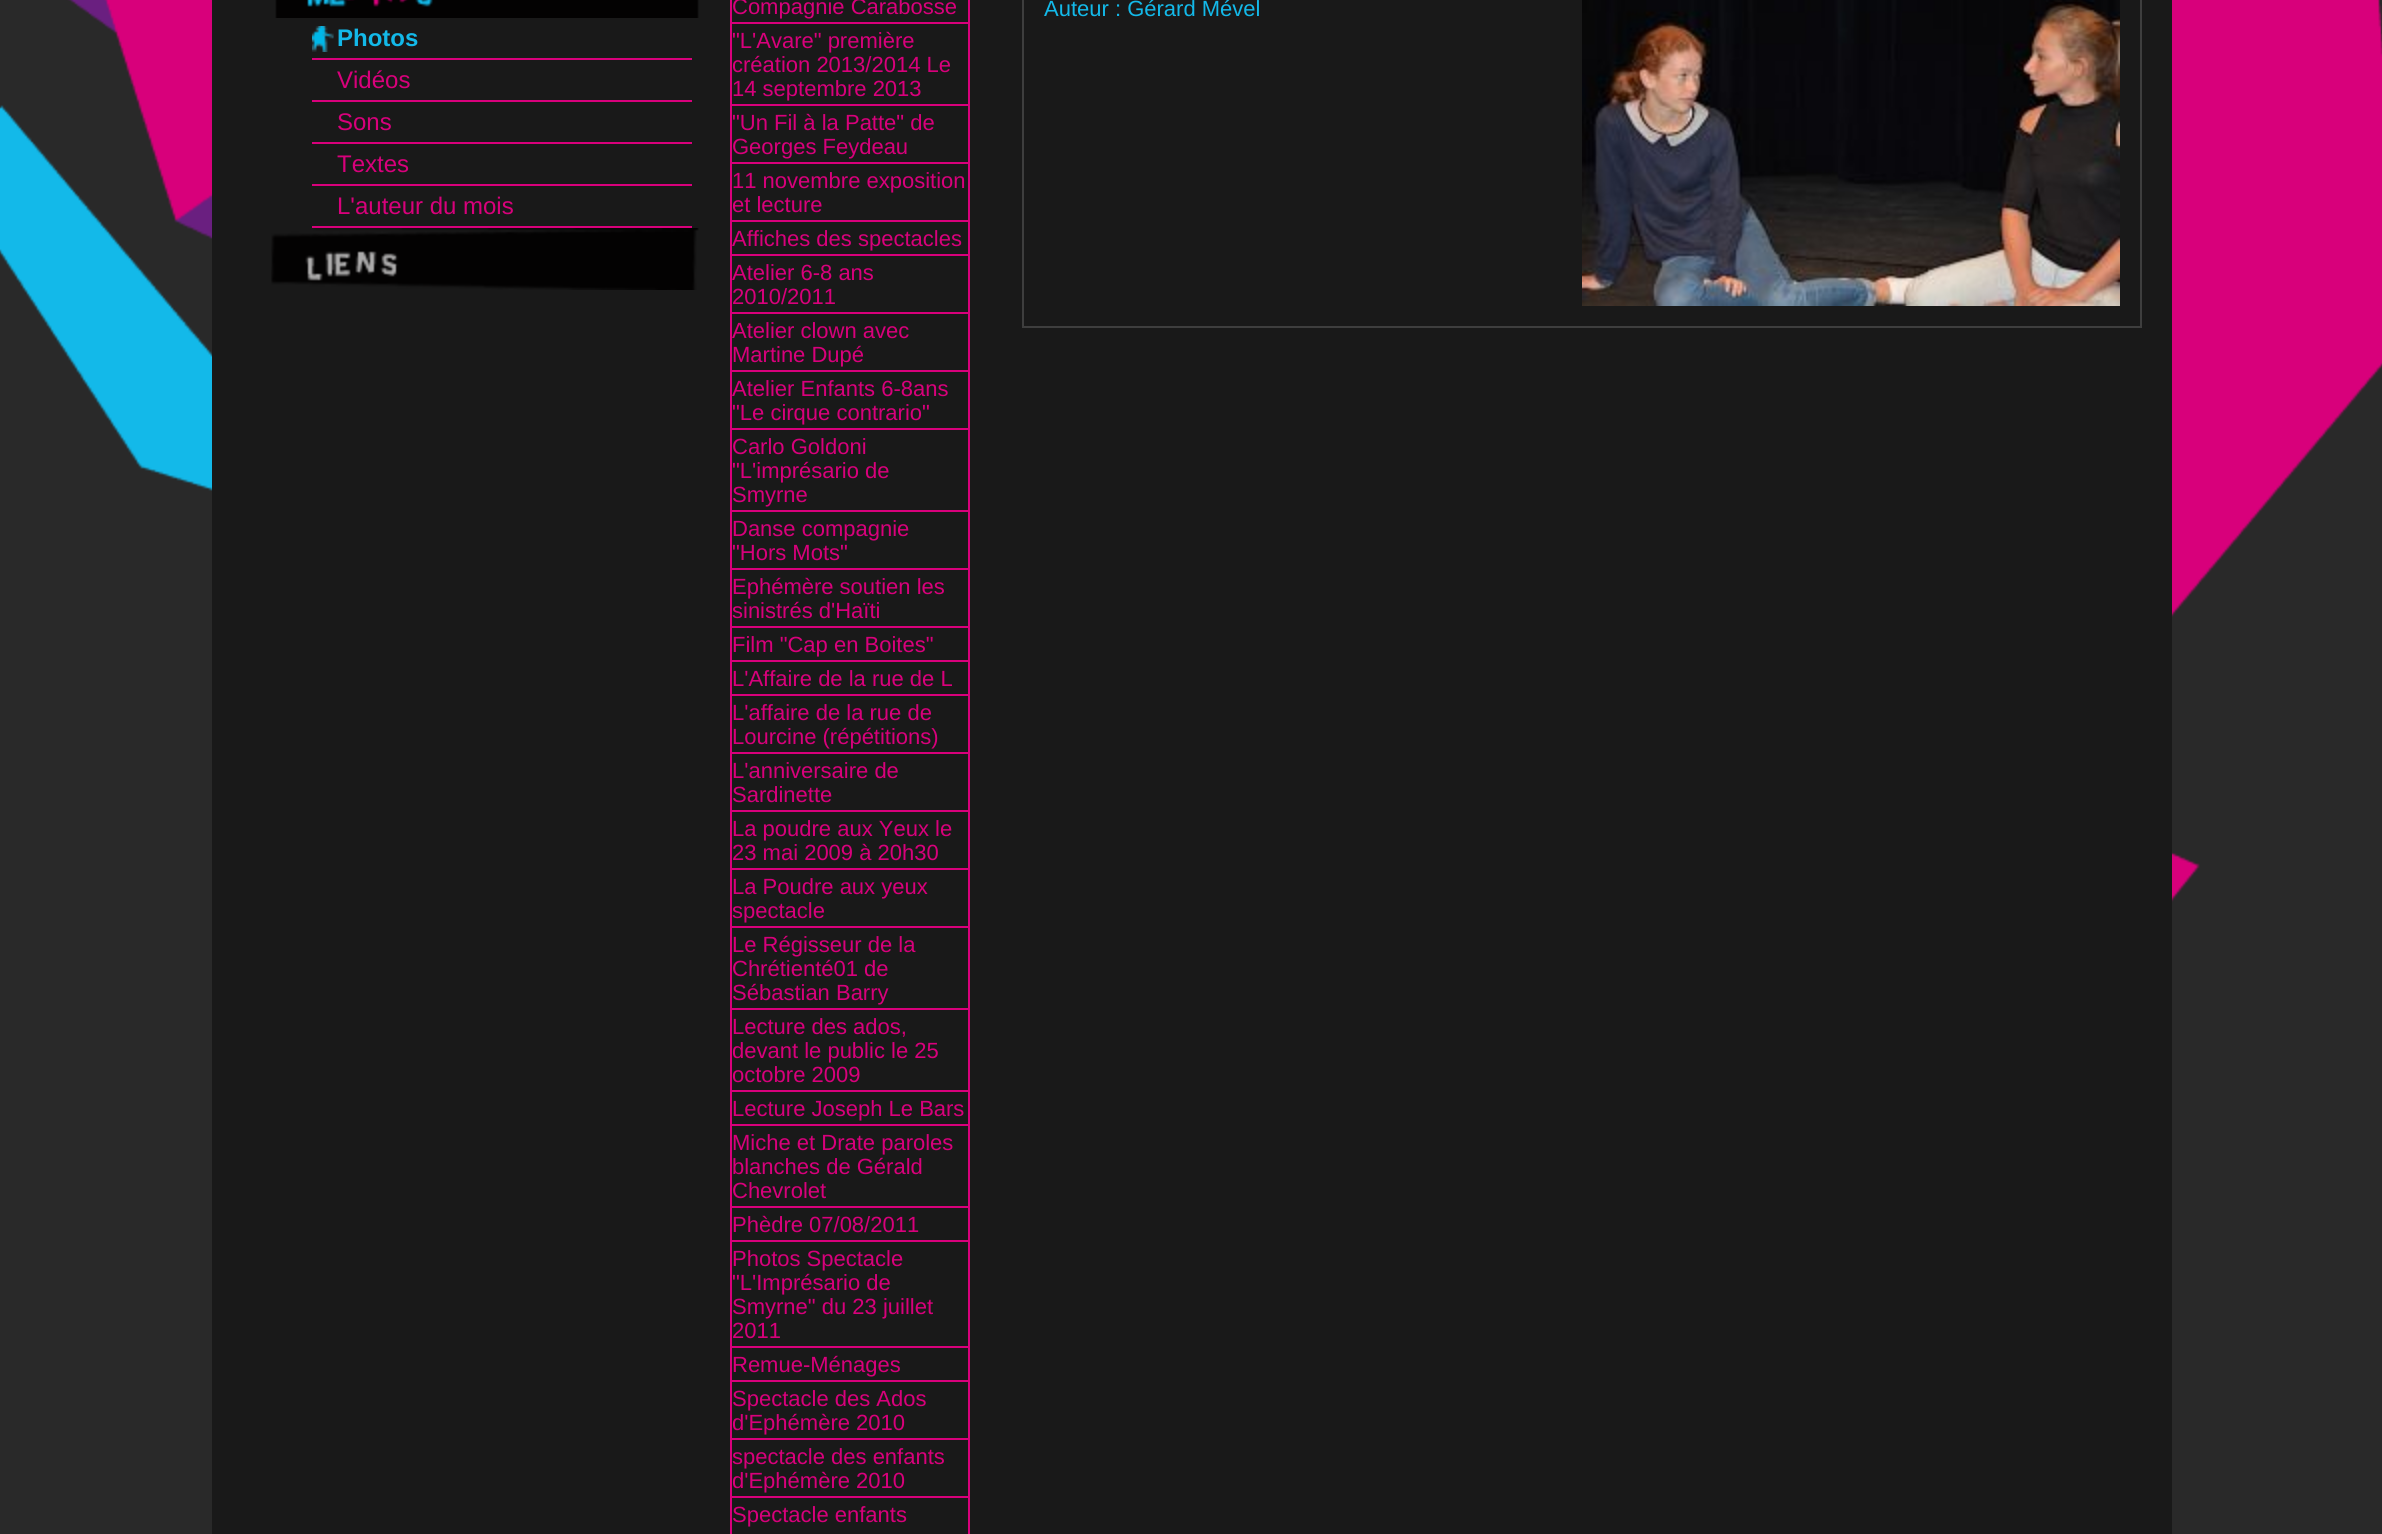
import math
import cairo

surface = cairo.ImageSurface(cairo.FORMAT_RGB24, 2382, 1534)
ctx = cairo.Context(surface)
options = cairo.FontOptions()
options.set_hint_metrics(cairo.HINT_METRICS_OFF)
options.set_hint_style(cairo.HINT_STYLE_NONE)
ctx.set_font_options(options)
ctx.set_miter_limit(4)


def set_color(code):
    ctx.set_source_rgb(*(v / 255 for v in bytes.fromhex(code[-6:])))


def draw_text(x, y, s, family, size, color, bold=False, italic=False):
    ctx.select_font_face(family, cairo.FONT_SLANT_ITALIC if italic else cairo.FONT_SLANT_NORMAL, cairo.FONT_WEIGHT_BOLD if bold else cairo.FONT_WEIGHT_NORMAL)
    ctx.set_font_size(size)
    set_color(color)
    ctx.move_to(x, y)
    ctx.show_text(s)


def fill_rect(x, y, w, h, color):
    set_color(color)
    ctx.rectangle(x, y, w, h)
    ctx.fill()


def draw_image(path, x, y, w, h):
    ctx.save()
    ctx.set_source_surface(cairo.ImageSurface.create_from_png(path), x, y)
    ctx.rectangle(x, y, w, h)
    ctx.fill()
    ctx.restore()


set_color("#292929")
ctx.paint()
draw_image("assets/img1.png", 0, 0, 2382, 981)
fill_rect(212, 0, 1960, 1534, "#191919")
draw_image("assets/img2.png", 275, 0, 424, 18)
fill_rect(312, 58, 380, 2, "#d8007b")
draw_image("assets/img3.png", 312, 26, 22, 26)
draw_text(337, 46, "Photos", "Liberation Sans", 24, "#13b9e9", bold=True)
fill_rect(312, 100, 380, 2, "#d8007b")
draw_text(337, 88, "Vidéos", "Liberation Sans", 24, "#d8007b")
fill_rect(312, 142, 380, 2, "#d8007b")
draw_text(337, 130, "Sons", "Liberation Sans", 24, "#d8007b")
fill_rect(312, 184, 380, 2, "#d8007b")
draw_text(337, 172, "Textes", "Liberation Sans", 24, "#d8007b")
fill_rect(312, 226, 380, 2, "#d8007b")
draw_text(337, 214, "L'auteur du mois", "Liberation Sans", 24, "#d8007b")
draw_image("assets/img4.png", 271, 228, 428, 62)
ctx.rectangle(731, -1, 238, 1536)
ctx.stroke()
draw_text(732, 14, "Compagnie Carabosse", "Liberation Sans", 22, "#d8007b")
fill_rect(732, 22, 236, 2, "#d8007b")
draw_text(732, 48, "\"L'Avare\" première", "Liberation Sans", 22, "#d8007b")
draw_text(732, 72, "création 2013/2014 Le", "Liberation Sans", 22, "#d8007b")
draw_text(732, 96, "14 septembre 2013", "Liberation Sans", 22, "#d8007b")
fill_rect(732, 104, 236, 2, "#d8007b")
draw_text(732, 130, "\"Un Fil à la Patte\" de", "Liberation Sans", 22, "#d8007b")
draw_text(732, 154, "Georges Feydeau", "Liberation Sans", 22, "#d8007b")
fill_rect(732, 162, 236, 2, "#d8007b")
draw_text(732, 188, "11 novembre exposition", "Liberation Sans", 22, "#d8007b")
draw_text(732, 212, "et lecture", "Liberation Sans", 22, "#d8007b")
fill_rect(732, 220, 236, 2, "#d8007b")
draw_text(732, 246, "Affiches des spectacles", "Liberation Sans", 22, "#d8007b")
fill_rect(732, 254, 236, 2, "#d8007b")
draw_text(732, 280, "Atelier 6-8 ans", "Liberation Sans", 22, "#d8007b")
draw_text(732, 304, "2010/2011", "Liberation Sans", 22, "#d8007b")
fill_rect(732, 312, 236, 2, "#d8007b")
draw_text(732, 338, "Atelier clown avec", "Liberation Sans", 22, "#d8007b")
draw_text(732, 362, "Martine Dupé", "Liberation Sans", 22, "#d8007b")
fill_rect(732, 370, 236, 2, "#d8007b")
draw_text(732, 396, "Atelier Enfants 6-8ans", "Liberation Sans", 22, "#d8007b")
draw_text(732, 420, "\"Le cirque contrario\"", "Liberation Sans", 22, "#d8007b")
fill_rect(732, 428, 236, 2, "#d8007b")
draw_text(732, 454, "Carlo Goldoni", "Liberation Sans", 22, "#d8007b")
draw_text(732, 478, "\"L'imprésario de", "Liberation Sans", 22, "#d8007b")
draw_text(732, 502, "Smyrne", "Liberation Sans", 22, "#d8007b")
fill_rect(732, 510, 236, 2, "#d8007b")
draw_text(732, 536, "Danse compagnie", "Liberation Sans", 22, "#d8007b")
draw_text(732, 560, "\"Hors Mots\"", "Liberation Sans", 22, "#d8007b")
fill_rect(732, 568, 236, 2, "#d8007b")
draw_text(732, 594, "Ephémère soutien les", "Liberation Sans", 22, "#d8007b")
draw_text(732, 618, "sinistrés d'Haïti", "Liberation Sans", 22, "#d8007b")
fill_rect(732, 626, 236, 2, "#d8007b")
draw_text(732, 652, "Film \"Cap en Boites\"", "Liberation Sans", 22, "#d8007b")
fill_rect(732, 660, 236, 2, "#d8007b")
draw_text(732, 686, "L'Affaire de la rue de L", "Liberation Sans", 22, "#d8007b")
fill_rect(732, 694, 236, 2, "#d8007b")
draw_text(732, 720, "L'affaire de la rue de", "Liberation Sans", 22, "#d8007b")
draw_text(732, 744, "Lourcine (répétitions)", "Liberation Sans", 22, "#d8007b")
fill_rect(732, 752, 236, 2, "#d8007b")
draw_text(732, 778, "L'anniversaire de", "Liberation Sans", 22, "#d8007b")
draw_text(732, 802, "Sardinette", "Liberation Sans", 22, "#d8007b")
fill_rect(732, 810, 236, 2, "#d8007b")
draw_text(732, 836, "La poudre aux Yeux le", "Liberation Sans", 22, "#d8007b")
draw_text(732, 860, "23 mai 2009 à 20h30", "Liberation Sans", 22, "#d8007b")
fill_rect(732, 868, 236, 2, "#d8007b")
draw_text(732, 894, "La Poudre aux yeux", "Liberation Sans", 22, "#d8007b")
draw_text(732, 918, "spectacle", "Liberation Sans", 22, "#d8007b")
fill_rect(732, 926, 236, 2, "#d8007b")
draw_text(732, 952, "Le Régisseur de la", "Liberation Sans", 22, "#d8007b")
draw_text(732, 976, "Chrétienté01 de", "Liberation Sans", 22, "#d8007b")
draw_text(732, 1000, "Sébastian Barry", "Liberation Sans", 22, "#d8007b")
fill_rect(732, 1008, 236, 2, "#d8007b")
draw_text(732, 1034, "Lecture des ados,", "Liberation Sans", 22, "#d8007b")
draw_text(732, 1058, "devant le public le 25", "Liberation Sans", 22, "#d8007b")
draw_text(732, 1082, "octobre 2009", "Liberation Sans", 22, "#d8007b")
fill_rect(732, 1090, 236, 2, "#d8007b")
draw_text(732, 1116, "Lecture Joseph Le Bars", "Liberation Sans", 22, "#d8007b")
fill_rect(732, 1124, 236, 2, "#d8007b")
draw_text(732, 1150, "Miche et Drate paroles", "Liberation Sans", 22, "#d8007b")
draw_text(732, 1174, "blanches de Gérald", "Liberation Sans", 22, "#d8007b")
draw_text(732, 1198, "Chevrolet", "Liberation Sans", 22, "#d8007b")
fill_rect(732, 1206, 236, 2, "#d8007b")
draw_text(732, 1232, "Phèdre 07/08/2011", "Liberation Sans", 22, "#d8007b")
fill_rect(732, 1240, 236, 2, "#d8007b")
draw_text(732, 1266, "Photos Spectacle", "Liberation Sans", 22, "#d8007b")
draw_text(732, 1290, "\"L'Imprésario de", "Liberation Sans", 22, "#d8007b")
draw_text(732, 1314, "Smyrne\" du 23 juillet", "Liberation Sans", 22, "#d8007b")
draw_text(732, 1338, "2011", "Liberation Sans", 22, "#d8007b")
fill_rect(732, 1346, 236, 2, "#d8007b")
draw_text(732, 1372, "Remue-Ménages", "Liberation Sans", 22, "#d8007b")
fill_rect(732, 1380, 236, 2, "#d8007b")
draw_text(732, 1406, "Spectacle des Ados", "Liberation Sans", 22, "#d8007b")
draw_text(732, 1430, "d'Ephémère 2010", "Liberation Sans", 22, "#d8007b")
fill_rect(732, 1438, 236, 2, "#d8007b")
draw_text(732, 1464, "spectacle des enfants", "Liberation Sans", 22, "#d8007b")
draw_text(732, 1488, "d'Ephémère 2010", "Liberation Sans", 22, "#d8007b")
fill_rect(732, 1496, 236, 2, "#d8007b")
draw_text(732, 1522, "Spectacle enfants", "Liberation Sans", 22, "#d8007b")
ctx.rectangle(1023, -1, 1118, 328)
set_color("#3e3e3e")
ctx.stroke()
draw_text(1044, 16, "Auteur : Gérard Mével", "Liberation Sans", 22, "#13b9e9")
draw_image("assets/img5.png", 1582, 0, 538, 306)
surface.write_to_png("output.png")
